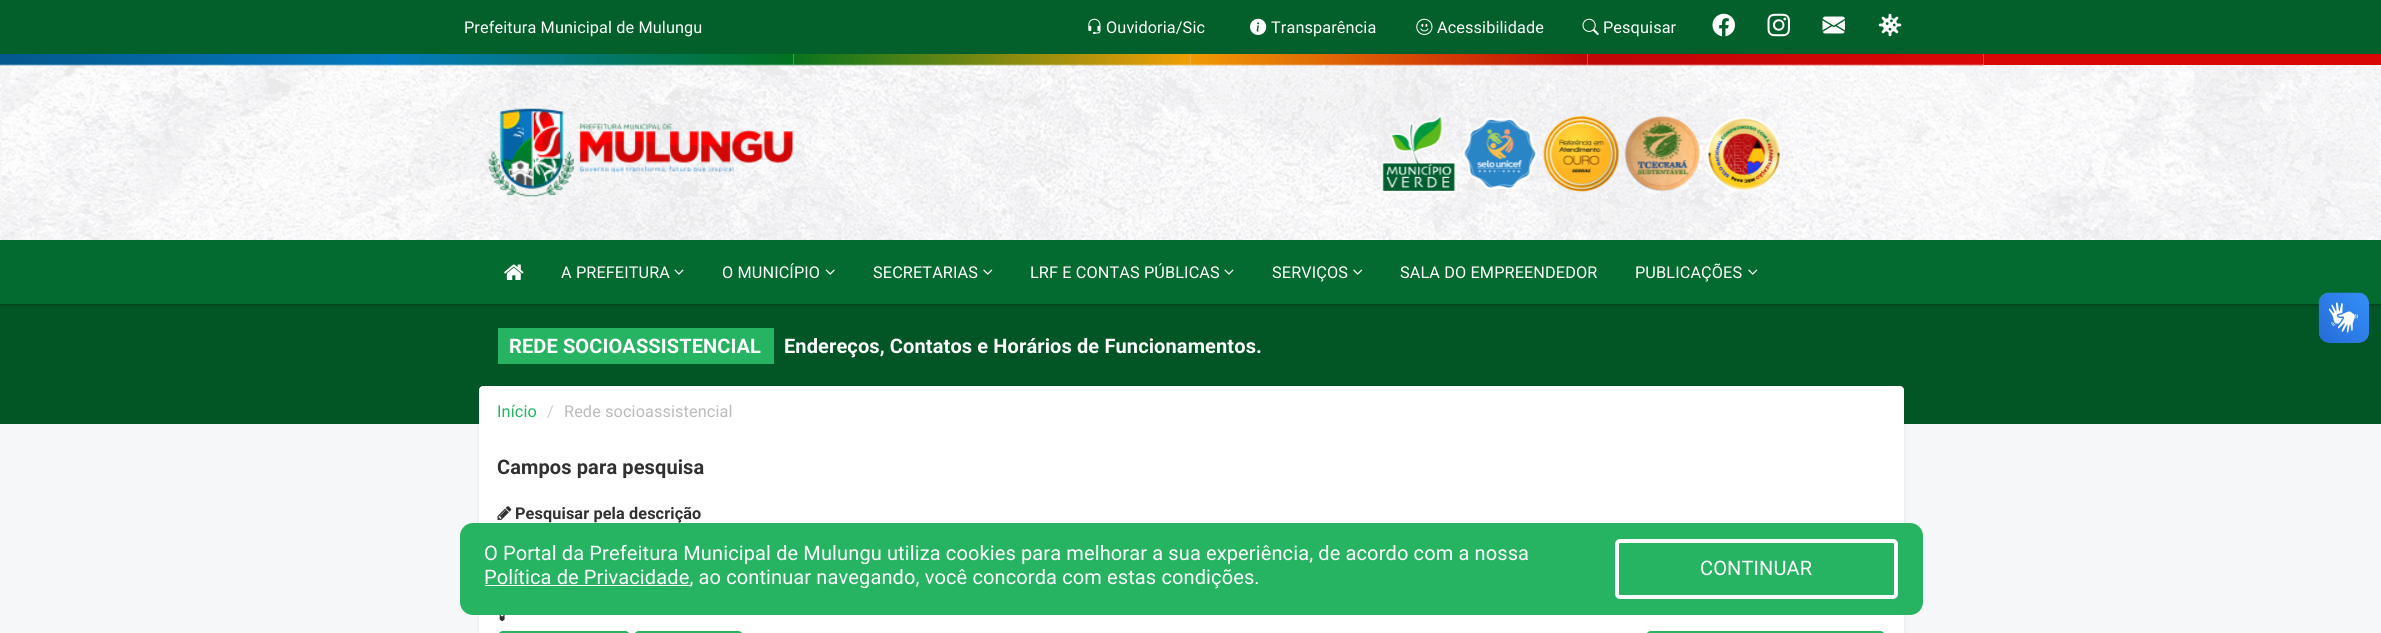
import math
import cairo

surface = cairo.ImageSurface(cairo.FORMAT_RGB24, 2381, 633)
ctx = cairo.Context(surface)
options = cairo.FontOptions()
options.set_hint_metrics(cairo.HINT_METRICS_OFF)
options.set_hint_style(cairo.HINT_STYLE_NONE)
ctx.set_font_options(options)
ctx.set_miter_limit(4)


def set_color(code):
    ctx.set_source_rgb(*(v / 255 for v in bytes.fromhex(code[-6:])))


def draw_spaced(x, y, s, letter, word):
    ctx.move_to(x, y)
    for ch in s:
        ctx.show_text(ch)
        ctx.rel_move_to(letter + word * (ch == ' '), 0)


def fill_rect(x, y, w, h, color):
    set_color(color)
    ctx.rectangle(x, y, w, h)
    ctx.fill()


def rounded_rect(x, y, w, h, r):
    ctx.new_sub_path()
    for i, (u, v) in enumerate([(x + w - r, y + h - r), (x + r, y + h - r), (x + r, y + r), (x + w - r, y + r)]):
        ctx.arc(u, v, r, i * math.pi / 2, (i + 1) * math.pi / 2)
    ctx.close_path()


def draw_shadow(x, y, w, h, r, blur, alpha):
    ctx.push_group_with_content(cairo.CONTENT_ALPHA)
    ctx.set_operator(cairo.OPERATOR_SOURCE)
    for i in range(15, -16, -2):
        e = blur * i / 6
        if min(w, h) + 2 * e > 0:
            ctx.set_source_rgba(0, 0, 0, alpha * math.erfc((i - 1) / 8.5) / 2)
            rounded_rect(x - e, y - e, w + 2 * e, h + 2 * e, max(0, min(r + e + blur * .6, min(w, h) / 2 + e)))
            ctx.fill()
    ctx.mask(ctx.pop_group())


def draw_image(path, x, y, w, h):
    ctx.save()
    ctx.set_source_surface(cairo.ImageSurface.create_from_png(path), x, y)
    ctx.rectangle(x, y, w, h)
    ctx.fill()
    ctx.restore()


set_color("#f6f7f8")
ctx.paint()
set_color("#030047")
draw_shadow(479, 388, 1425, 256, 5, 2, 0.09)
fill_rect(0, 304, 2381, 120, "#025626")
set_color("#000000")
draw_shadow(0, 1, 2381, 304, 0, 1, 0.3)
draw_image("assets/img1.png", 0, 54, 2381, 186)
fill_rect(0, 0, 2381, 54, "#03602b")
ctx.select_font_face("Roboto")
ctx.set_font_size(16.25)
set_color("#ffffff")
draw_spaced(464, 33, "Prefeitura Municipal de Mulungu", 0.12, 0)
draw_image("assets/img2.png", 1088, 18, 13, 16)
draw_spaced(1106, 33, "Ouvidoria/Sic", 0.12, 0)
draw_image("assets/img3.png", 1250, 18, 17, 17)
draw_spaced(1271, 33, "Transparência", 0.12, 0)
draw_image("assets/img4.png", 1416, 18, 17, 17)
draw_spaced(1437, 33, "Acessibilidade", 0.12, 0)
draw_image("assets/img5.png", 1582, 18, 17, 17)
draw_spaced(1603, 33, "Pesquisar", 0.12, 0)
draw_image("assets/img6.png", 1712, 13, 23, 24)
draw_image("assets/img7.png", 1767, 13, 23, 24)
draw_image("assets/img8.png", 1822, 16, 23, 18)
draw_image("assets/img9.png", 1878, 13, 24, 24)
draw_image("assets/img10.png", 0, 54, 397, 12)
draw_image("assets/img11.png", 396, 54, 399, 12)
draw_image("assets/img12.png", 793, 54, 397, 12)
draw_image("assets/img13.png", 1189, 54, 399, 12)
draw_image("assets/img14.png", 1587, 54, 397, 12)
fill_rect(1984, 54, 397, 11, "#da0707")
draw_image("assets/img15.png", 488, 108, 305, 89)
draw_image("assets/img16.png", 1381, 115, 76, 78)
draw_image("assets/img17.png", 1462, 117, 76, 73)
draw_image("assets/img18.png", 1543, 116, 77, 76)
draw_image("assets/img19.png", 1624, 116, 77, 76)
draw_image("assets/img20.png", 1706, 116, 76, 75)
fill_rect(0, 240, 2381, 64, "#036b30")
draw_image("assets/img21.png", 504, 264, 20, 16)
set_color("#ffffff")
draw_spaced(561, 278, "A PREFEITURA", 0.12, 0)
draw_image("assets/img22.png", 674, 269, 10, 6)
draw_spaced(722, 278, "O MUNICÍPIO", 0.12, 0)
draw_image("assets/img23.png", 825, 269, 10, 6)
draw_spaced(873, 278, "SECRETARIAS", 0.12, 0)
draw_image("assets/img24.png", 983, 269, 10, 6)
draw_spaced(1030, 278, "LRF E CONTAS PÚBLICAS", 0.12, 0)
draw_image("assets/img22.png", 1224, 269, 10, 6)
draw_spaced(1272, 278, "SERVIÇOS", 0.12, 0)
draw_image("assets/img24.png", 1353, 269, 10, 6)
draw_spaced(1400, 278, "SALA DO EMPREENDEDOR", 0.12, 0)
draw_spaced(1635, 278, "PUBLICAÇÕES", 0.12, 0)
draw_image("assets/img24.png", 1748, 269, 10, 6)
draw_image("assets/img25.png", 2318, 292, 51, 51)
draw_image("assets/img26.png", 2319, 293, 50, 50)
fill_rect(498, 328, 276, 36, "#26b362")
ctx.select_font_face("Roboto", cairo.FONT_SLANT_NORMAL, cairo.FONT_WEIGHT_BOLD)
ctx.set_font_size(20)
set_color("#ffffff")
draw_spaced(509, 353, "REDE SOCIOASSISTENCIAL", 0.12, 0)
draw_spaced(784, 353, "Endereços, Contatos e Horários de Funcionamentos.", 0.12, 0)
fill_rect(479, 432, 1425, 201, "#ffffff")
rounded_rect(479, 386, 1425, 50, 4)
ctx.fill()
ctx.select_font_face("Roboto")
ctx.set_font_size(16.25)
set_color("#26b362")
draw_spaced(497, 417, "Início", 0.12, 0)
set_color("#cccccc")
draw_spaced(547, 417, "/", 0.12, 0)
set_color("#bbbbbb")
draw_spaced(564, 417, "Rede socioassistencial", 0.12, 0)
ctx.select_font_face("Roboto", cairo.FONT_SLANT_NORMAL, cairo.FONT_WEIGHT_BOLD)
ctx.set_font_size(20)
set_color("#303030")
draw_spaced(497, 474, "Campos para pesquisa", 0.12, 0)
draw_image("assets/img27.png", 497, 506, 15, 14)
ctx.set_font_size(16.25)
draw_spaced(515, 519, "Pesquisar pela descrição", 0.12, 0)
draw_image("assets/img28.png", 499, 615, 6, 7)
set_color("#26b362")
rounded_rect(498, 631, 132, 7, 5)
ctx.fill()
rounded_rect(634, 631, 109, 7, 5)
ctx.fill()
rounded_rect(1646, 631, 239, 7, 5)
ctx.fill()
rounded_rect(460, 523, 1463, 92, 13)
ctx.fill()
ctx.select_font_face("Roboto")
ctx.set_font_size(20)
set_color("#ffffff")
draw_spaced(484, 560, "O Portal da Prefeitura Municipal de Mulungu utiliza cookies para melhorar a sua experiência, de acordo com a nossa", 0.12, 0)
fill_rect(485, 585, 205, 1, "#ffffff")
draw_spaced(484, 584, "Política de Privacidade, ao continuar navegando, você concorda com estas condições.", 0.12, 0)
rounded_rect(1617, 541, 279, 56, 3)
ctx.set_line_width(4)
ctx.stroke()
draw_spaced(1700, 575, "CONTINUAR", 0.12, 0)
surface.write_to_png("output.png")
